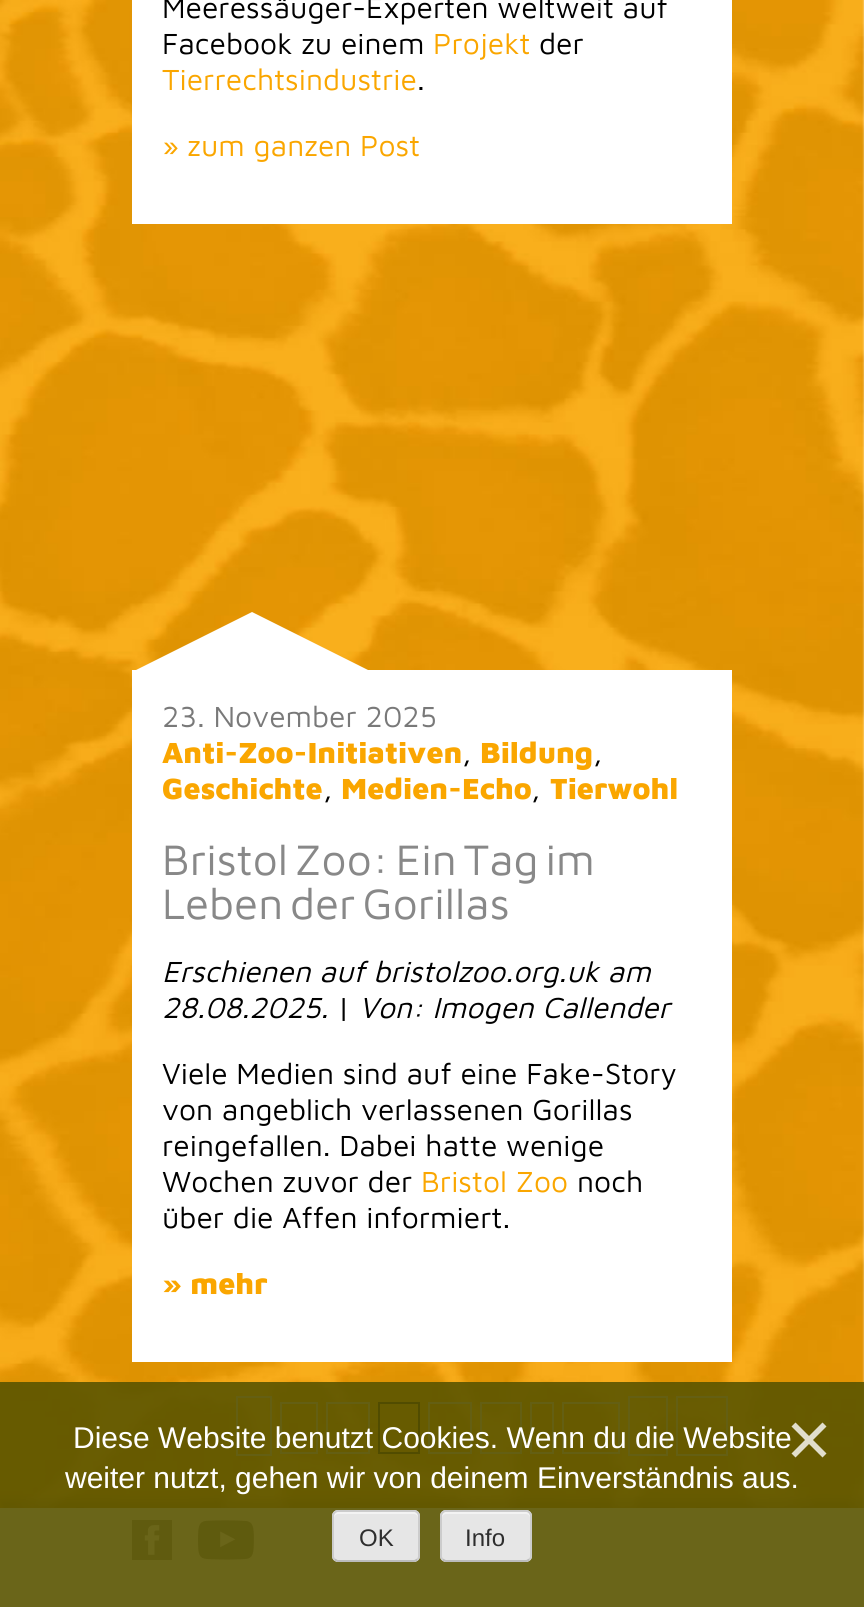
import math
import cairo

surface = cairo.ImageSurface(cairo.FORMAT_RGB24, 864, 1607)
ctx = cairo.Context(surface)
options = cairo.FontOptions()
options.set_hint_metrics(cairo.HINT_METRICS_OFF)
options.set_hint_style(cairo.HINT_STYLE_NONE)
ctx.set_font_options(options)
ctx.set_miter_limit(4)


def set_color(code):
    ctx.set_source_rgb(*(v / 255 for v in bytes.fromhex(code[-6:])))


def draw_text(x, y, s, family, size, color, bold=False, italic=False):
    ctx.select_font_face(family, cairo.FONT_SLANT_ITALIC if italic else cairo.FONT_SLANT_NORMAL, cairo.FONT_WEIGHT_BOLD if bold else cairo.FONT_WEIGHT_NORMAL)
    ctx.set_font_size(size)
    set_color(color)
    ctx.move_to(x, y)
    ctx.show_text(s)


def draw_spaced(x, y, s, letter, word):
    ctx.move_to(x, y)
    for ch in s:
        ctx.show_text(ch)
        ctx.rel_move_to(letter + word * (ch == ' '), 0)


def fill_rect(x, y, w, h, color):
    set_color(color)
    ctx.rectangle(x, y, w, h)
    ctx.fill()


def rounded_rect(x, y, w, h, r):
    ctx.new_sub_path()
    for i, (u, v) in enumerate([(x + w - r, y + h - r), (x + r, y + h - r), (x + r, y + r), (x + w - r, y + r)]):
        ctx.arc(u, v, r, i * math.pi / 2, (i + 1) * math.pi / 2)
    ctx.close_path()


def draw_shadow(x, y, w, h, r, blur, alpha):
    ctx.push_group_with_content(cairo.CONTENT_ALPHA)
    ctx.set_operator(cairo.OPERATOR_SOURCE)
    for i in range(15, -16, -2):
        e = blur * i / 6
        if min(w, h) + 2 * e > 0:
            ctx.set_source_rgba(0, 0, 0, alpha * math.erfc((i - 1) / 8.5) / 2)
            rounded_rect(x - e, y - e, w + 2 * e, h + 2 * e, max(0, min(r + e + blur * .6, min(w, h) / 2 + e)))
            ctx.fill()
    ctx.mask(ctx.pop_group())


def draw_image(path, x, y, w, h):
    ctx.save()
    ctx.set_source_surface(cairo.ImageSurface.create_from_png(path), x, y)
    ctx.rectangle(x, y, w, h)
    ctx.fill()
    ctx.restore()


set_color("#ffffff")
ctx.paint()
draw_image("assets/img1.png", 0, 0, 864, 1508)
fill_rect(132, 0, 600, 224, "#ffffff")
draw_text(162, 18, "Meeressäuger-Experten weltweit auf", "Maven Pro", 30, "#000000")
draw_text(162, 54, "Facebook zu einem", "Maven Pro", 30, "#000000")
draw_text(433, 54, "Projekt", "Maven Pro", 30, "#faa600")
draw_text(539, 54, "der", "Maven Pro", 30, "#000000")
draw_text(162, 90, "Tierrechtsindustrie", "Maven Pro", 30, "#faa600")
draw_text(417, 90, ".", "Maven Pro", 30, "#000000")
draw_text(162, 156, "» zum ganzen Post", "Maven Pro", 30, "#faa600")
fill_rect(132, 670, 600, 692, "#ffffff")
ctx.new_path()
ctx.move_to(372, 672)
ctx.line_to(132, 672)
ctx.line_to(252, 612)
ctx.close_path()
ctx.fill()
draw_text(162, 727, "23. November 2025", "Maven Pro", 30, "#797979")
draw_text(162, 763, "Anti-Zoo-Initiativen", "Maven Pro Black", 30, "#faa600")
draw_text(462, 763, ",", "Maven Pro", 30, "#000000")
draw_text(480, 763, "Bildung", "Maven Pro Black", 30, "#faa600")
draw_text(593, 763, ",", "Maven Pro", 30, "#000000")
draw_text(162, 799, "Geschichte", "Maven Pro Black", 30, "#faa600")
draw_text(323, 799, ",", "Maven Pro", 30, "#000000")
draw_text(341, 799, "Medien-Echo", "Maven Pro Black", 30, "#faa600")
draw_text(531, 799, ",", "Maven Pro", 30, "#000000")
draw_text(550, 799, "Tierwohl", "Maven Pro Black", 30, "#faa600")
ctx.select_font_face("Maven Pro")
ctx.set_font_size(44)
set_color("#888888")
draw_spaced(162, 875, "Bristol Zoo: Ein Tag im", 0, -6)
draw_spaced(162, 919, "Leben der Gorillas", 0, -6)
draw_text(162, 982, "Erschienen auf bristolzoo.org.uk am", "Maven Pro", 30, "#000000", italic=True)
draw_text(162, 1018, "28.08.2025.", "Maven Pro", 30, "#000000", italic=True)
draw_text(337, 1018, "|", "Maven Pro", 30, "#000000")
draw_text(359, 1018, "Von: Imogen Callender", "Maven Pro", 30, "#000000", italic=True)
draw_text(162, 1084, "Viele Medien sind auf eine Fake-Story", "Maven Pro", 30, "#000000")
draw_text(162, 1120, "von angeblich verlassenen Gorillas", "Maven Pro", 30, "#000000")
draw_text(162, 1156, "reingefallen. Dabei hatte wenige", "Maven Pro", 30, "#000000")
draw_text(162, 1192, "Wochen zuvor der", "Maven Pro", 30, "#000000")
draw_text(421, 1192, "Bristol Zoo", "Maven Pro", 30, "#faa600")
draw_text(577, 1192, "noch", "Maven Pro", 30, "#000000")
draw_text(162, 1228, "über die Affen informiert.", "Maven Pro", 30, "#000000")
draw_text(162, 1294, "» mehr", "Maven Pro Black", 30, "#faa600")
ctx.rectangle(237, 1397, 34, 58)
set_color("#bfbfbf")
ctx.stroke()
ctx.rectangle(281, 1403, 36, 50)
ctx.stroke()
ctx.rectangle(327, 1403, 42, 50)
ctx.stroke()
ctx.rectangle(379, 1403, 40, 50)
set_color("#000000")
ctx.stroke()
ctx.rectangle(429, 1403, 42, 50)
set_color("#bfbfbf")
ctx.stroke()
ctx.rectangle(481, 1403, 40, 50)
ctx.stroke()
ctx.rectangle(531, 1403, 22, 50)
ctx.stroke()
ctx.rectangle(563, 1403, 56, 50)
ctx.stroke()
ctx.rectangle(629, 1397, 38, 58)
ctx.stroke()
ctx.rectangle(677, 1397, 50, 58)
ctx.stroke()
set_color("#000000")
draw_shadow(0, 1500, 864, 100, 0, 4, 0.2)
fill_rect(0, 1508, 864, 99, "#ffffff")
draw_image("assets/img2.png", 132, 1520, 40, 40)
draw_image("assets/img3.png", 198, 1520, 56, 40)
ctx.set_source_rgba(0.353, 0.333, 0, 0.9)
ctx.rectangle(0, 1382, 864, 225)
ctx.fill()
draw_text(73, 1448, "Diese Website benutzt Cookies. Wenn du die Website", "Liberation Sans", 30, "#ffffff")
draw_text(65, 1488, "weiter nutzt, gehen wir von deinem Einverständnis aus.", "Liberation Sans", 30, "#ffffff")
set_color("#e1decc")
ctx.new_path()
ctx.move_to(822.5, 1422.5)
ctx.line_to(826.5, 1426.5)
ctx.line_to(795.5, 1457.5)
ctx.line_to(791.5, 1453.5)
ctx.close_path()
ctx.fill()
ctx.new_path()
ctx.move_to(791.5, 1426.5)
ctx.line_to(795.5, 1422.5)
ctx.line_to(826.5, 1453.5)
ctx.line_to(822.5, 1457.5)
ctx.close_path()
ctx.fill()
set_color("#e6e6e6")
rounded_rect(332, 1510, 88, 52, 6)
ctx.fill()
set_color("#f3f3f3")
ctx.new_path()
ctx.move_to(338, 1514)
ctx.line_to(414, 1514)
ctx.curve_to(416, 1514, 418, 1516, 418, 1518)
ctx.curve_to(418, 1509, 409, 1512, 401, 1512)
ctx.line_to(351, 1512)
ctx.curve_to(343, 1512, 334, 1509, 334, 1518)
ctx.curve_to(334, 1516, 336, 1514, 338, 1514)
ctx.close_path()
ctx.fill()
ctx.new_path()
ctx.move_to(417.5, 1559.5)
ctx.line_to(414.5, 1561)
ctx.line_to(337.5, 1561)
ctx.line_to(334.5, 1559.5)
set_color("#bbbbbb")
ctx.stroke()
ctx.new_path()
ctx.move_to(334.5, 1559.5)
ctx.curve_to(333.5, 1558.5, 333, 1557.5, 333, 1556)
ctx.line_to(333, 1516)
ctx.curve_to(333, 1514.5, 333.5, 1513.5, 334.5, 1512.5)
ctx.curve_to(335.5, 1511.5, 336.5, 1511, 338, 1511)
ctx.line_to(414, 1511)
ctx.curve_to(415.5, 1511, 416.5, 1511.5, 417.5, 1512.5)
ctx.curve_to(418.5, 1513.5, 419, 1514.5, 419, 1516)
ctx.line_to(419, 1556)
ctx.curve_to(419, 1557.5, 418.5, 1558.5, 417.5, 1559.5)
set_color("#cccccc")
ctx.stroke()
draw_text(359, 1546, "OK", "Liberation Sans", 24, "#2e2e2e")
set_color("#e6e6e6")
rounded_rect(440, 1510, 92, 52, 6)
ctx.fill()
set_color("#f3f3f3")
ctx.new_path()
ctx.move_to(446, 1514)
ctx.line_to(526, 1514)
ctx.curve_to(528, 1514, 530, 1516, 530, 1518)
ctx.curve_to(530, 1508, 521, 1512, 513, 1512)
ctx.line_to(459, 1512)
ctx.curve_to(451, 1512, 442, 1508, 442, 1518)
ctx.curve_to(442, 1516, 444, 1514, 446, 1514)
ctx.close_path()
ctx.fill()
ctx.new_path()
ctx.move_to(529.5, 1559.5)
ctx.line_to(526.5, 1561)
ctx.line_to(445.5, 1561)
ctx.line_to(442.5, 1559.5)
set_color("#bbbbbb")
ctx.stroke()
ctx.new_path()
ctx.move_to(442.5, 1559.5)
ctx.curve_to(441.5, 1558.5, 441, 1557.5, 441, 1556)
ctx.line_to(441, 1516)
ctx.curve_to(441, 1514.5, 441.5, 1513.5, 442.5, 1512.5)
ctx.curve_to(443.5, 1511.5, 444.5, 1511, 446, 1511)
ctx.line_to(526, 1511)
ctx.curve_to(527.5, 1511, 528.5, 1511.5, 529.5, 1512.5)
ctx.curve_to(530.5, 1513.5, 531, 1514.5, 531, 1516)
ctx.line_to(531, 1556)
ctx.curve_to(531, 1557.5, 530.5, 1558.5, 529.5, 1559.5)
set_color("#cccccc")
ctx.stroke()
draw_text(465, 1546, "Info", "Liberation Sans", 24, "#2e2e2e")
surface.write_to_png("output.png")
